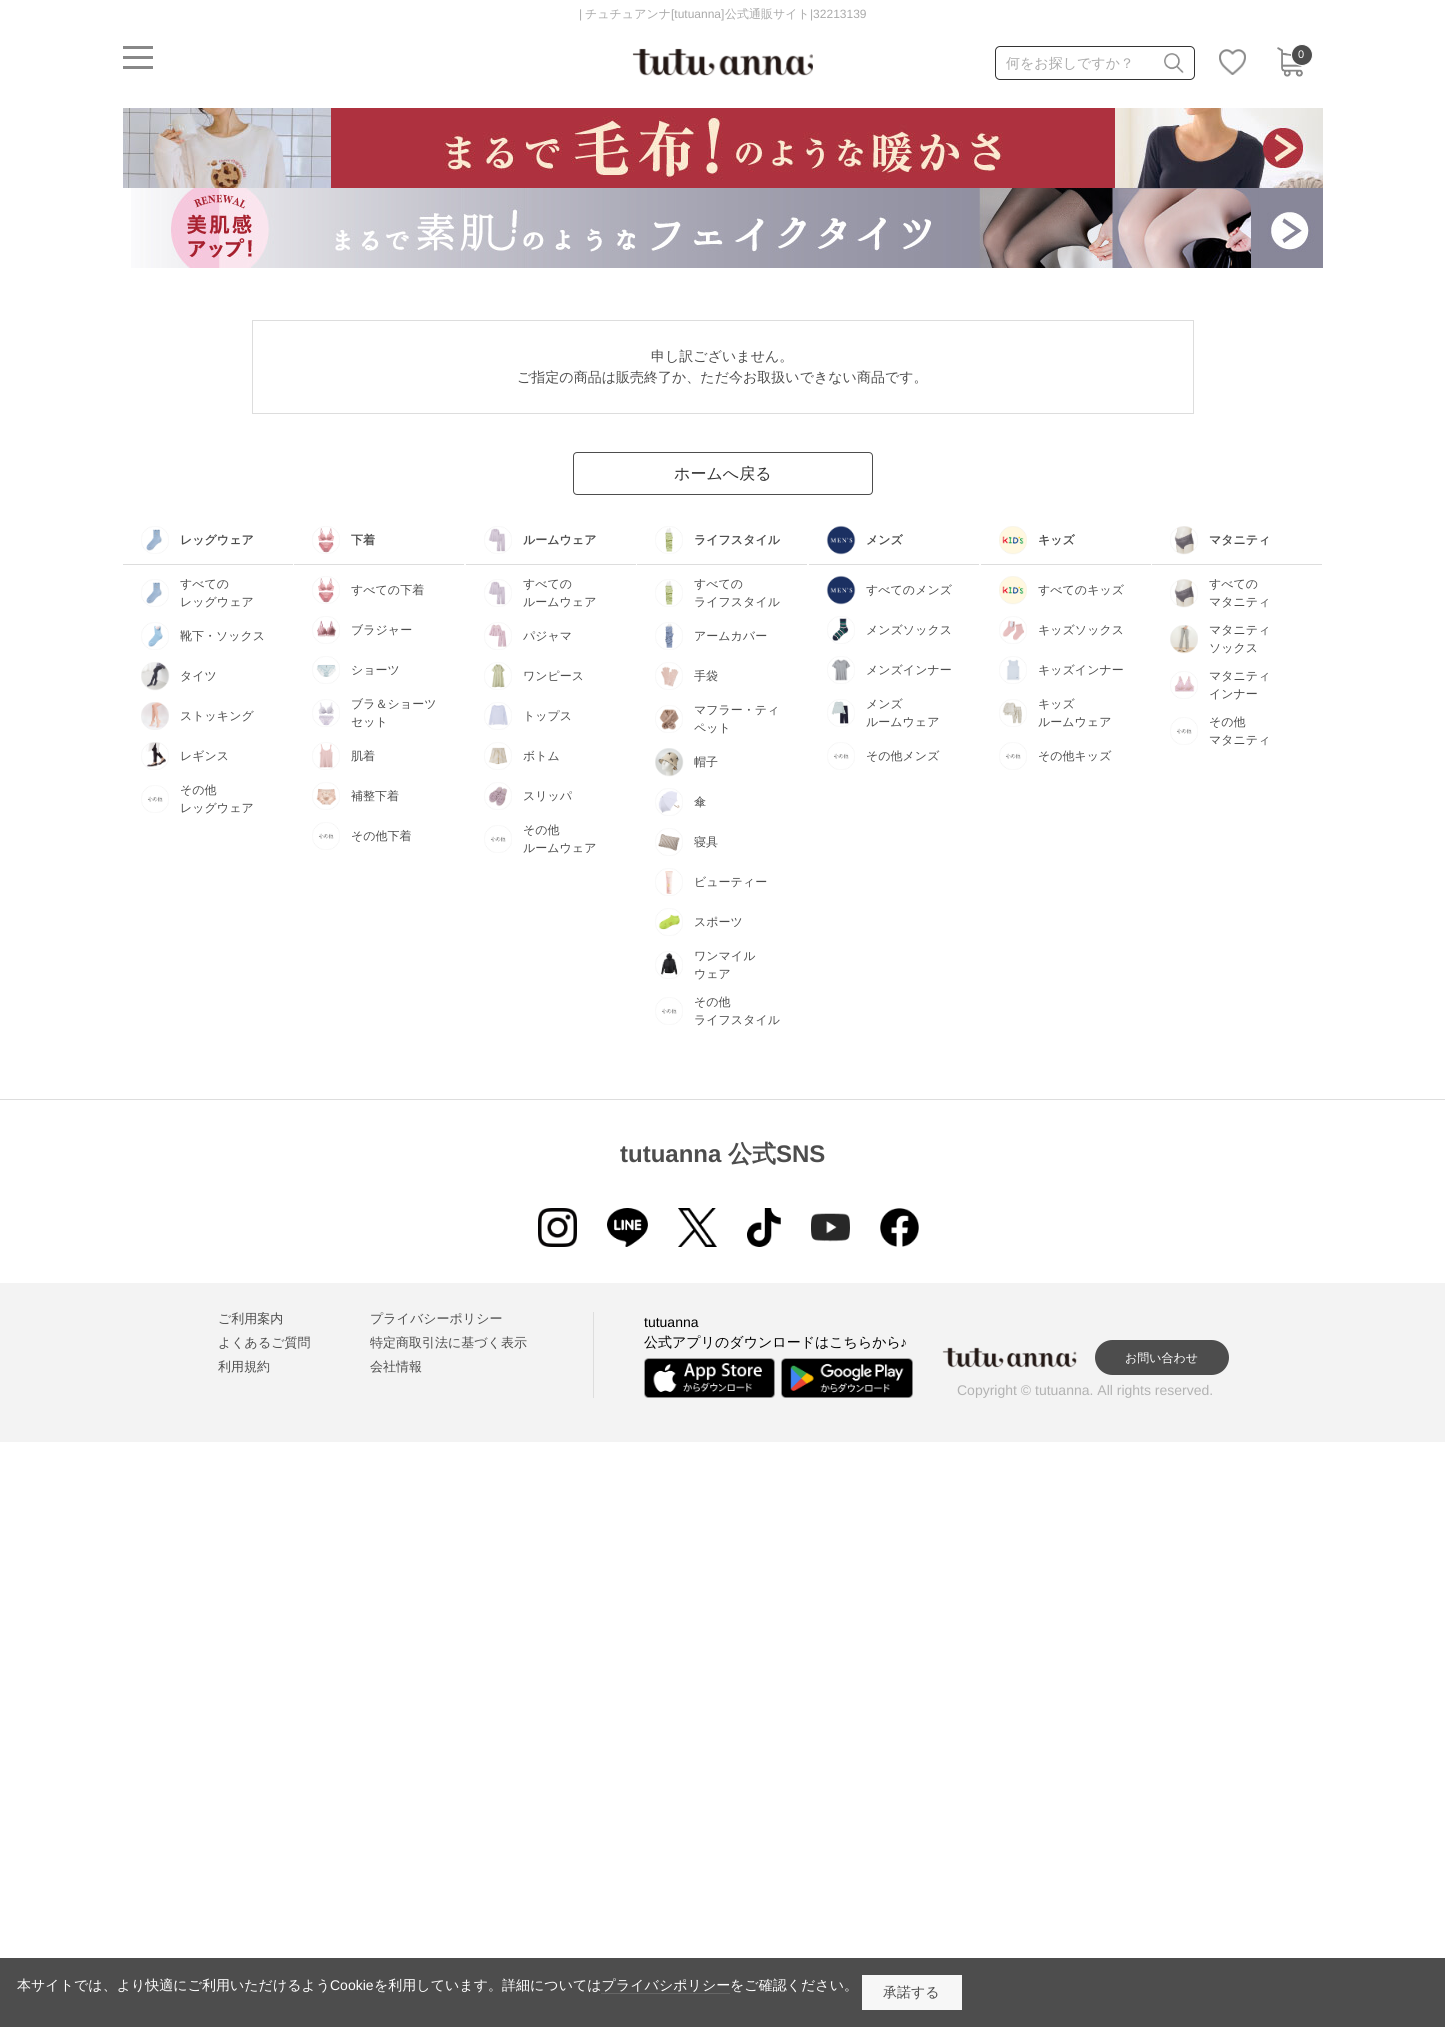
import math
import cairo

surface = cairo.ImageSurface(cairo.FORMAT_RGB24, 1445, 2027)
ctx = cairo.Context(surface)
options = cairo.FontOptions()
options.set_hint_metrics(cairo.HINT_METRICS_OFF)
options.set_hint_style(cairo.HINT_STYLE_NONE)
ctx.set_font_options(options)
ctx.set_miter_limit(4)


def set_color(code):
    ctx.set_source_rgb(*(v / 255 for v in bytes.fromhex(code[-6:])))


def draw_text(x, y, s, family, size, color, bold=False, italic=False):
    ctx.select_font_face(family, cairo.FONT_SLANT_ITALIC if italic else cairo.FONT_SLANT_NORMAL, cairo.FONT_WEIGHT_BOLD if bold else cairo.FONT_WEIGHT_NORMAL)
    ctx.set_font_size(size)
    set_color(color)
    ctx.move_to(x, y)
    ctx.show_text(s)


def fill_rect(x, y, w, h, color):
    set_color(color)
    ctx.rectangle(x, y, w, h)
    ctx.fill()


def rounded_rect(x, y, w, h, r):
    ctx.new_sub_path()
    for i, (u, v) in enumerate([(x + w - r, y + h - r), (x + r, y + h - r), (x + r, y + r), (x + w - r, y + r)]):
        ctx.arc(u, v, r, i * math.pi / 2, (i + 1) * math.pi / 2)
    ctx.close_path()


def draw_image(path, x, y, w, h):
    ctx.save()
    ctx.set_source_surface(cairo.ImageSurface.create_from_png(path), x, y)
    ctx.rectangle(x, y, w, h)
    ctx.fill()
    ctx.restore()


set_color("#ffffff")
ctx.paint()
draw_text(579, 18, "|", "Liberation Sans", 12, "#aaaaaa")
draw_text(585, 18, "チュチュアンナ", "WenQuanYi Zen Hei Medium", 12, "#aaaaaa")
draw_text(671, 18, "[tutuanna]", "Liberation Sans", 12, "#aaaaaa")
draw_text(725, 18, "公式通販サイト", "WenQuanYi Zen Hei Medium", 12, "#aaaaaa")
draw_text(810, 18, "|32213139", "Liberation Sans", 12, "#aaaaaa")
fill_rect(123, 46, 30, 3, "#888888")
fill_rect(123, 56, 30, 3, "#888888")
fill_rect(123, 66, 30, 3, "#888888")
draw_image("assets/img1.png", 632, 48, 181, 28)
draw_image("assets/img2.png", 1219, 49, 27, 26)
draw_image("assets/img3.png", 1277, 47, 27, 30)
set_color("#4d4d4d")
ctx.arc(1302, 55, 10.5, 0, 2 * math.pi)
ctx.fill_preserve()
set_color("#ffffff")
ctx.set_line_width(1)
ctx.stroke()
draw_text(1298, 58, "0", "Liberation Sans", 11, "#ffffff")
rounded_rect(995.5, 46.5, 199, 33, 4.5)
set_color("#333333")
ctx.stroke()
draw_image("assets/img4.png", 1164, 53, 20, 21)
draw_text(1006, 68, "何をお探しですか？", "WenQuanYi Zen Hei Medium", 14, "#aaaaaa")
draw_image("assets/img5.png", 123, 108, 1200, 80)
draw_image("assets/img6.png", 131, 188, 1192, 80)
ctx.rectangle(252.5, 320.5, 941, 93)
set_color("#dddddd")
ctx.stroke()
draw_text(651, 361, "申し訳ございません。", "WenQuanYi Zen Hei Medium", 14, "#4d4d4d")
draw_text(517, 382, "ご指定の商品は販売終了か、ただ今お取扱いできない商品です。", "WenQuanYi Zen Hei Medium", 14, "#4d4d4d")
rounded_rect(573.5, 452.5, 299, 42, 3.5)
ctx.stroke()
draw_text(674, 479, "ホームへ戻る", "WenQuanYi Zen Hei Medium", 16, "#333333")
fill_rect(123, 564, 170, 1, "#dddddd")
draw_image("assets/img7.png", 141, 526, 28, 28)
draw_text(180, 544, "レッグウェア", "WenQuanYi Zen Hei", 12, "#4d4d4d", bold=True)
draw_image("assets/img7.png", 141, 579, 28, 28)
draw_text(180, 588, "すべての", "WenQuanYi Zen Hei Medium", 12, "#4d4d4d")
draw_text(180, 606, "レッグウェア", "WenQuanYi Zen Hei Medium", 12, "#4d4d4d")
draw_image("assets/img8.png", 141, 622, 28, 28)
draw_text(180, 640, "靴下・ソックス", "WenQuanYi Zen Hei Medium", 12, "#4d4d4d")
draw_image("assets/img9.png", 141, 662, 29, 29)
draw_text(180, 680, "タイツ", "WenQuanYi Zen Hei Medium", 12, "#4d4d4d")
draw_image("assets/img10.png", 141, 702, 28, 28)
draw_text(180, 720, "ストッキング", "WenQuanYi Zen Hei Medium", 12, "#4d4d4d")
draw_image("assets/img11.png", 141, 742, 28, 28)
draw_text(180, 760, "レギンス", "WenQuanYi Zen Hei Medium", 12, "#4d4d4d")
draw_image("assets/img12.png", 141, 785, 28, 28)
draw_text(180, 794, "その他", "WenQuanYi Zen Hei Medium", 12, "#4d4d4d")
draw_text(180, 812, "レッグウェア", "WenQuanYi Zen Hei Medium", 12, "#4d4d4d")
fill_rect(294, 564, 170, 1, "#dddddd")
draw_image("assets/img13.png", 312, 526, 28, 28)
draw_text(351, 544, "下着", "WenQuanYi Zen Hei", 12, "#4d4d4d", bold=True)
draw_image("assets/img13.png", 312, 576, 28, 28)
draw_text(351, 594, "すべての下着", "WenQuanYi Zen Hei Medium", 12, "#4d4d4d")
draw_image("assets/img14.png", 312, 616, 28, 28)
draw_text(351, 634, "ブラジャー", "WenQuanYi Zen Hei Medium", 12, "#4d4d4d")
draw_image("assets/img15.png", 312, 656, 28, 28)
draw_text(351, 674, "ショーツ", "WenQuanYi Zen Hei Medium", 12, "#4d4d4d")
draw_image("assets/img16.png", 312, 699, 28, 28)
draw_text(351, 708, "ブラ＆ショーツ", "WenQuanYi Zen Hei Medium", 12, "#4d4d4d")
draw_text(351, 726, "セット", "WenQuanYi Zen Hei Medium", 12, "#4d4d4d")
draw_image("assets/img17.png", 312, 742, 28, 28)
draw_text(351, 760, "肌着", "WenQuanYi Zen Hei Medium", 12, "#4d4d4d")
draw_image("assets/img18.png", 312, 782, 28, 28)
draw_text(351, 800, "補整下着", "WenQuanYi Zen Hei Medium", 12, "#4d4d4d")
draw_image("assets/img19.png", 312, 822, 28, 28)
draw_text(351, 840, "その他下着", "WenQuanYi Zen Hei Medium", 12, "#4d4d4d")
fill_rect(466, 564, 170, 1, "#dddddd")
draw_image("assets/img20.png", 484, 526, 28, 28)
draw_text(523, 544, "ルームウェア", "WenQuanYi Zen Hei", 12, "#4d4d4d", bold=True)
draw_image("assets/img20.png", 484, 579, 28, 28)
draw_text(523, 588, "すべての", "WenQuanYi Zen Hei Medium", 12, "#4d4d4d")
draw_text(523, 606, "ルームウェア", "WenQuanYi Zen Hei Medium", 12, "#4d4d4d")
draw_image("assets/img21.png", 484, 622, 28, 28)
draw_text(523, 640, "パジャマ", "WenQuanYi Zen Hei Medium", 12, "#4d4d4d")
draw_image("assets/img22.png", 484, 662, 28, 28)
draw_text(523, 680, "ワンピース", "WenQuanYi Zen Hei Medium", 12, "#4d4d4d")
draw_image("assets/img23.png", 484, 702, 28, 28)
draw_text(523, 720, "トップス", "WenQuanYi Zen Hei Medium", 12, "#4d4d4d")
draw_image("assets/img24.png", 484, 742, 28, 28)
draw_text(523, 760, "ボトム", "WenQuanYi Zen Hei Medium", 12, "#4d4d4d")
draw_image("assets/img25.png", 484, 782, 28, 28)
draw_text(523, 800, "スリッパ", "WenQuanYi Zen Hei Medium", 12, "#4d4d4d")
draw_image("assets/img26.png", 484, 825, 28, 28)
draw_text(523, 834, "その他", "WenQuanYi Zen Hei Medium", 12, "#4d4d4d")
draw_text(523, 852, "ルームウェア", "WenQuanYi Zen Hei Medium", 12, "#4d4d4d")
fill_rect(637, 564, 170, 1, "#dddddd")
draw_image("assets/img27.png", 655, 526, 28, 28)
draw_text(694, 544, "ライフスタイル", "WenQuanYi Zen Hei", 12, "#4d4d4d", bold=True)
draw_image("assets/img27.png", 655, 579, 28, 28)
draw_text(694, 588, "すべての", "WenQuanYi Zen Hei Medium", 12, "#4d4d4d")
draw_text(694, 606, "ライフスタイル", "WenQuanYi Zen Hei Medium", 12, "#4d4d4d")
draw_image("assets/img28.png", 655, 622, 28, 28)
draw_text(694, 640, "アームカバー", "WenQuanYi Zen Hei Medium", 12, "#4d4d4d")
draw_image("assets/img29.png", 655, 662, 28, 28)
draw_text(694, 680, "手袋", "WenQuanYi Zen Hei Medium", 12, "#4d4d4d")
draw_image("assets/img30.png", 655, 705, 28, 28)
draw_text(694, 714, "マフラー・ティ", "WenQuanYi Zen Hei Medium", 12, "#4d4d4d")
draw_text(694, 732, "ペット", "WenQuanYi Zen Hei Medium", 12, "#4d4d4d")
draw_image("assets/img31.png", 655, 748, 29, 29)
draw_text(694, 766, "帽子", "WenQuanYi Zen Hei Medium", 12, "#4d4d4d")
draw_image("assets/img32.png", 655, 788, 28, 28)
draw_text(694, 806, "傘", "WenQuanYi Zen Hei Medium", 12, "#4d4d4d")
draw_image("assets/img33.png", 655, 828, 28, 28)
draw_text(694, 846, "寝具", "WenQuanYi Zen Hei Medium", 12, "#4d4d4d")
draw_image("assets/img34.png", 655, 868, 28, 28)
draw_text(694, 886, "ビューティー", "WenQuanYi Zen Hei Medium", 12, "#4d4d4d")
draw_image("assets/img35.png", 655, 908, 28, 28)
draw_text(694, 926, "スポーツ", "WenQuanYi Zen Hei Medium", 12, "#4d4d4d")
draw_image("assets/img36.png", 655, 951, 28, 28)
draw_text(694, 960, "ワンマイル", "WenQuanYi Zen Hei Medium", 12, "#4d4d4d")
draw_text(694, 978, "ウェア", "WenQuanYi Zen Hei Medium", 12, "#4d4d4d")
draw_image("assets/img37.png", 655, 997, 28, 28)
draw_text(694, 1006, "その他", "WenQuanYi Zen Hei Medium", 12, "#4d4d4d")
draw_text(694, 1024, "ライフスタイル", "WenQuanYi Zen Hei Medium", 12, "#4d4d4d")
fill_rect(809, 564, 170, 1, "#dddddd")
draw_image("assets/img38.png", 826, 525, 30, 30)
draw_text(866, 544, "メンズ", "WenQuanYi Zen Hei", 12, "#4d4d4d", bold=True)
draw_image("assets/img38.png", 826, 575, 30, 30)
draw_text(866, 594, "すべてのメンズ", "WenQuanYi Zen Hei Medium", 12, "#4d4d4d")
draw_image("assets/img39.png", 827, 616, 28, 28)
draw_text(866, 634, "メンズソックス", "WenQuanYi Zen Hei Medium", 12, "#4d4d4d")
draw_image("assets/img40.png", 827, 656, 28, 28)
draw_text(866, 674, "メンズインナー", "WenQuanYi Zen Hei Medium", 12, "#4d4d4d")
draw_image("assets/img41.png", 827, 699, 28, 28)
draw_text(866, 708, "メンズ", "WenQuanYi Zen Hei Medium", 12, "#4d4d4d")
draw_text(866, 726, "ルームウェア", "WenQuanYi Zen Hei Medium", 12, "#4d4d4d")
draw_image("assets/img26.png", 827, 742, 28, 28)
draw_text(866, 760, "その他メンズ", "WenQuanYi Zen Hei Medium", 12, "#4d4d4d")
fill_rect(981, 564, 170, 1, "#dddddd")
draw_image("assets/img42.png", 999, 526, 28, 29)
draw_text(1038, 544, "キッズ", "WenQuanYi Zen Hei", 12, "#4d4d4d", bold=True)
draw_image("assets/img42.png", 999, 576, 28, 29)
draw_text(1038, 594, "すべてのキッズ", "WenQuanYi Zen Hei Medium", 12, "#4d4d4d")
draw_image("assets/img43.png", 999, 616, 28, 28)
draw_text(1038, 634, "キッズソックス", "WenQuanYi Zen Hei Medium", 12, "#4d4d4d")
draw_image("assets/img44.png", 999, 656, 28, 28)
draw_text(1038, 674, "キッズインナー", "WenQuanYi Zen Hei Medium", 12, "#4d4d4d")
draw_image("assets/img45.png", 999, 699, 28, 28)
draw_text(1038, 708, "キッズ", "WenQuanYi Zen Hei Medium", 12, "#4d4d4d")
draw_text(1038, 726, "ルームウェア", "WenQuanYi Zen Hei Medium", 12, "#4d4d4d")
draw_image("assets/img26.png", 999, 742, 28, 28)
draw_text(1038, 760, "その他キッズ", "WenQuanYi Zen Hei Medium", 12, "#4d4d4d")
fill_rect(1152, 564, 170, 1, "#dddddd")
draw_image("assets/img46.png", 1170, 526, 28, 29)
draw_text(1209, 544, "マタニティ", "WenQuanYi Zen Hei", 12, "#4d4d4d", bold=True)
draw_image("assets/img46.png", 1170, 579, 28, 29)
draw_text(1209, 588, "すべての", "WenQuanYi Zen Hei Medium", 12, "#4d4d4d")
draw_text(1209, 606, "マタニティ", "WenQuanYi Zen Hei Medium", 12, "#4d4d4d")
draw_image("assets/img47.png", 1170, 625, 28, 29)
draw_text(1209, 634, "マタニティ", "WenQuanYi Zen Hei Medium", 12, "#4d4d4d")
draw_text(1209, 652, "ソックス", "WenQuanYi Zen Hei Medium", 12, "#4d4d4d")
draw_image("assets/img48.png", 1170, 671, 28, 28)
draw_text(1209, 680, "マタニティ", "WenQuanYi Zen Hei Medium", 12, "#4d4d4d")
draw_text(1209, 698, "インナー", "WenQuanYi Zen Hei Medium", 12, "#4d4d4d")
draw_image("assets/img26.png", 1170, 717, 28, 28)
draw_text(1209, 726, "その他", "WenQuanYi Zen Hei Medium", 12, "#4d4d4d")
draw_text(1209, 744, "マタニティ", "WenQuanYi Zen Hei Medium", 12, "#4d4d4d")
fill_rect(0, 1099, 1445, 1, "#dddddd")
draw_text(620, 1162, "tutuanna", "Liberation Sans", 24, "#4d4d4d", bold=True)
draw_text(728, 1162, "公式", "WenQuanYi Zen Hei", 24, "#4d4d4d", bold=True)
draw_text(776, 1162, "SNS", "Liberation Sans", 24, "#4d4d4d", bold=True)
draw_image("assets/img49.png", 538, 1208, 39, 39)
draw_image("assets/img50.png", 607, 1208, 41, 39)
draw_image("assets/img51.png", 678, 1208, 39, 39)
draw_image("assets/img52.png", 747, 1208, 34, 39)
draw_image("assets/img53.png", 811, 1213, 39, 29)
draw_image("assets/img54.png", 880, 1208, 39, 39)
fill_rect(0, 1283, 1445, 159, "#f3f3f3")
fill_rect(593, 1312, 1, 86, "#dddddd")
draw_text(218, 1323, "ご利用案内", "WenQuanYi Zen Hei Medium", 13, "#4d4d4d")
draw_text(218, 1347, "よくあるご質問", "WenQuanYi Zen Hei Medium", 13, "#4d4d4d")
draw_text(218, 1371, "利用規約", "WenQuanYi Zen Hei Medium", 13, "#4d4d4d")
draw_text(370, 1323, "プライバシーポリシー", "WenQuanYi Zen Hei Medium", 13, "#4d4d4d")
draw_text(370, 1347, "特定商取引法に基づく表示", "WenQuanYi Zen Hei Medium", 13, "#4d4d4d")
draw_text(370, 1371, "会社情報", "WenQuanYi Zen Hei Medium", 13, "#4d4d4d")
draw_text(644, 1327, "tutuanna", "Liberation Sans", 14, "#000000")
draw_text(644, 1347, "公式アプリのダウンロードはこちらから", "WenQuanYi Zen Hei Medium", 14, "#000000")
draw_text(900, 1347, "♪", "Liberation Sans", 14, "#000000")
draw_image("assets/img55.png", 644, 1358, 131, 40)
draw_image("assets/img56.png", 781, 1358, 132, 40)
draw_image("assets/img57.png", 942, 1347, 135, 21)
set_color("#4d4d4d")
rounded_rect(1095, 1340, 134, 35, 17.5)
ctx.fill()
draw_text(1125, 1362, "お問い合わせ", "WenQuanYi Zen Hei Medium", 12, "#ffffff")
draw_text(957, 1395, "Copyright © tutuanna. All rights reserved.", "Liberation Sans", 14, "#b2b2b2")
fill_rect(0, 1958, 1445, 69, "#4d4d4d")
draw_text(17, 1990, "本サイトでは、より快適にご利用いただけるよう", "WenQuanYi Zen Hei Medium", 14, "#ffffff")
draw_text(330, 1990, "Cookie", "Liberation Sans", 14, "#ffffff")
draw_text(374, 1990, "を利用しています。詳細についてはプライバシポリシー", "WenQuanYi Zen Hei Medium", 14, "#ffffff")
draw_text(730, 1990, "をご確認ください。", "WenQuanYi Zen Hei Medium", 14, "#ffffff")
fill_rect(862, 1975, 100, 35, "#f7f7f7")
draw_text(883, 1997, "承諾する", "WenQuanYi Zen Hei Medium", 14, "#4d4d4d")
fill_rect(601, 1993, 129, 1, "#666666")
surface.write_to_png("output.png")
